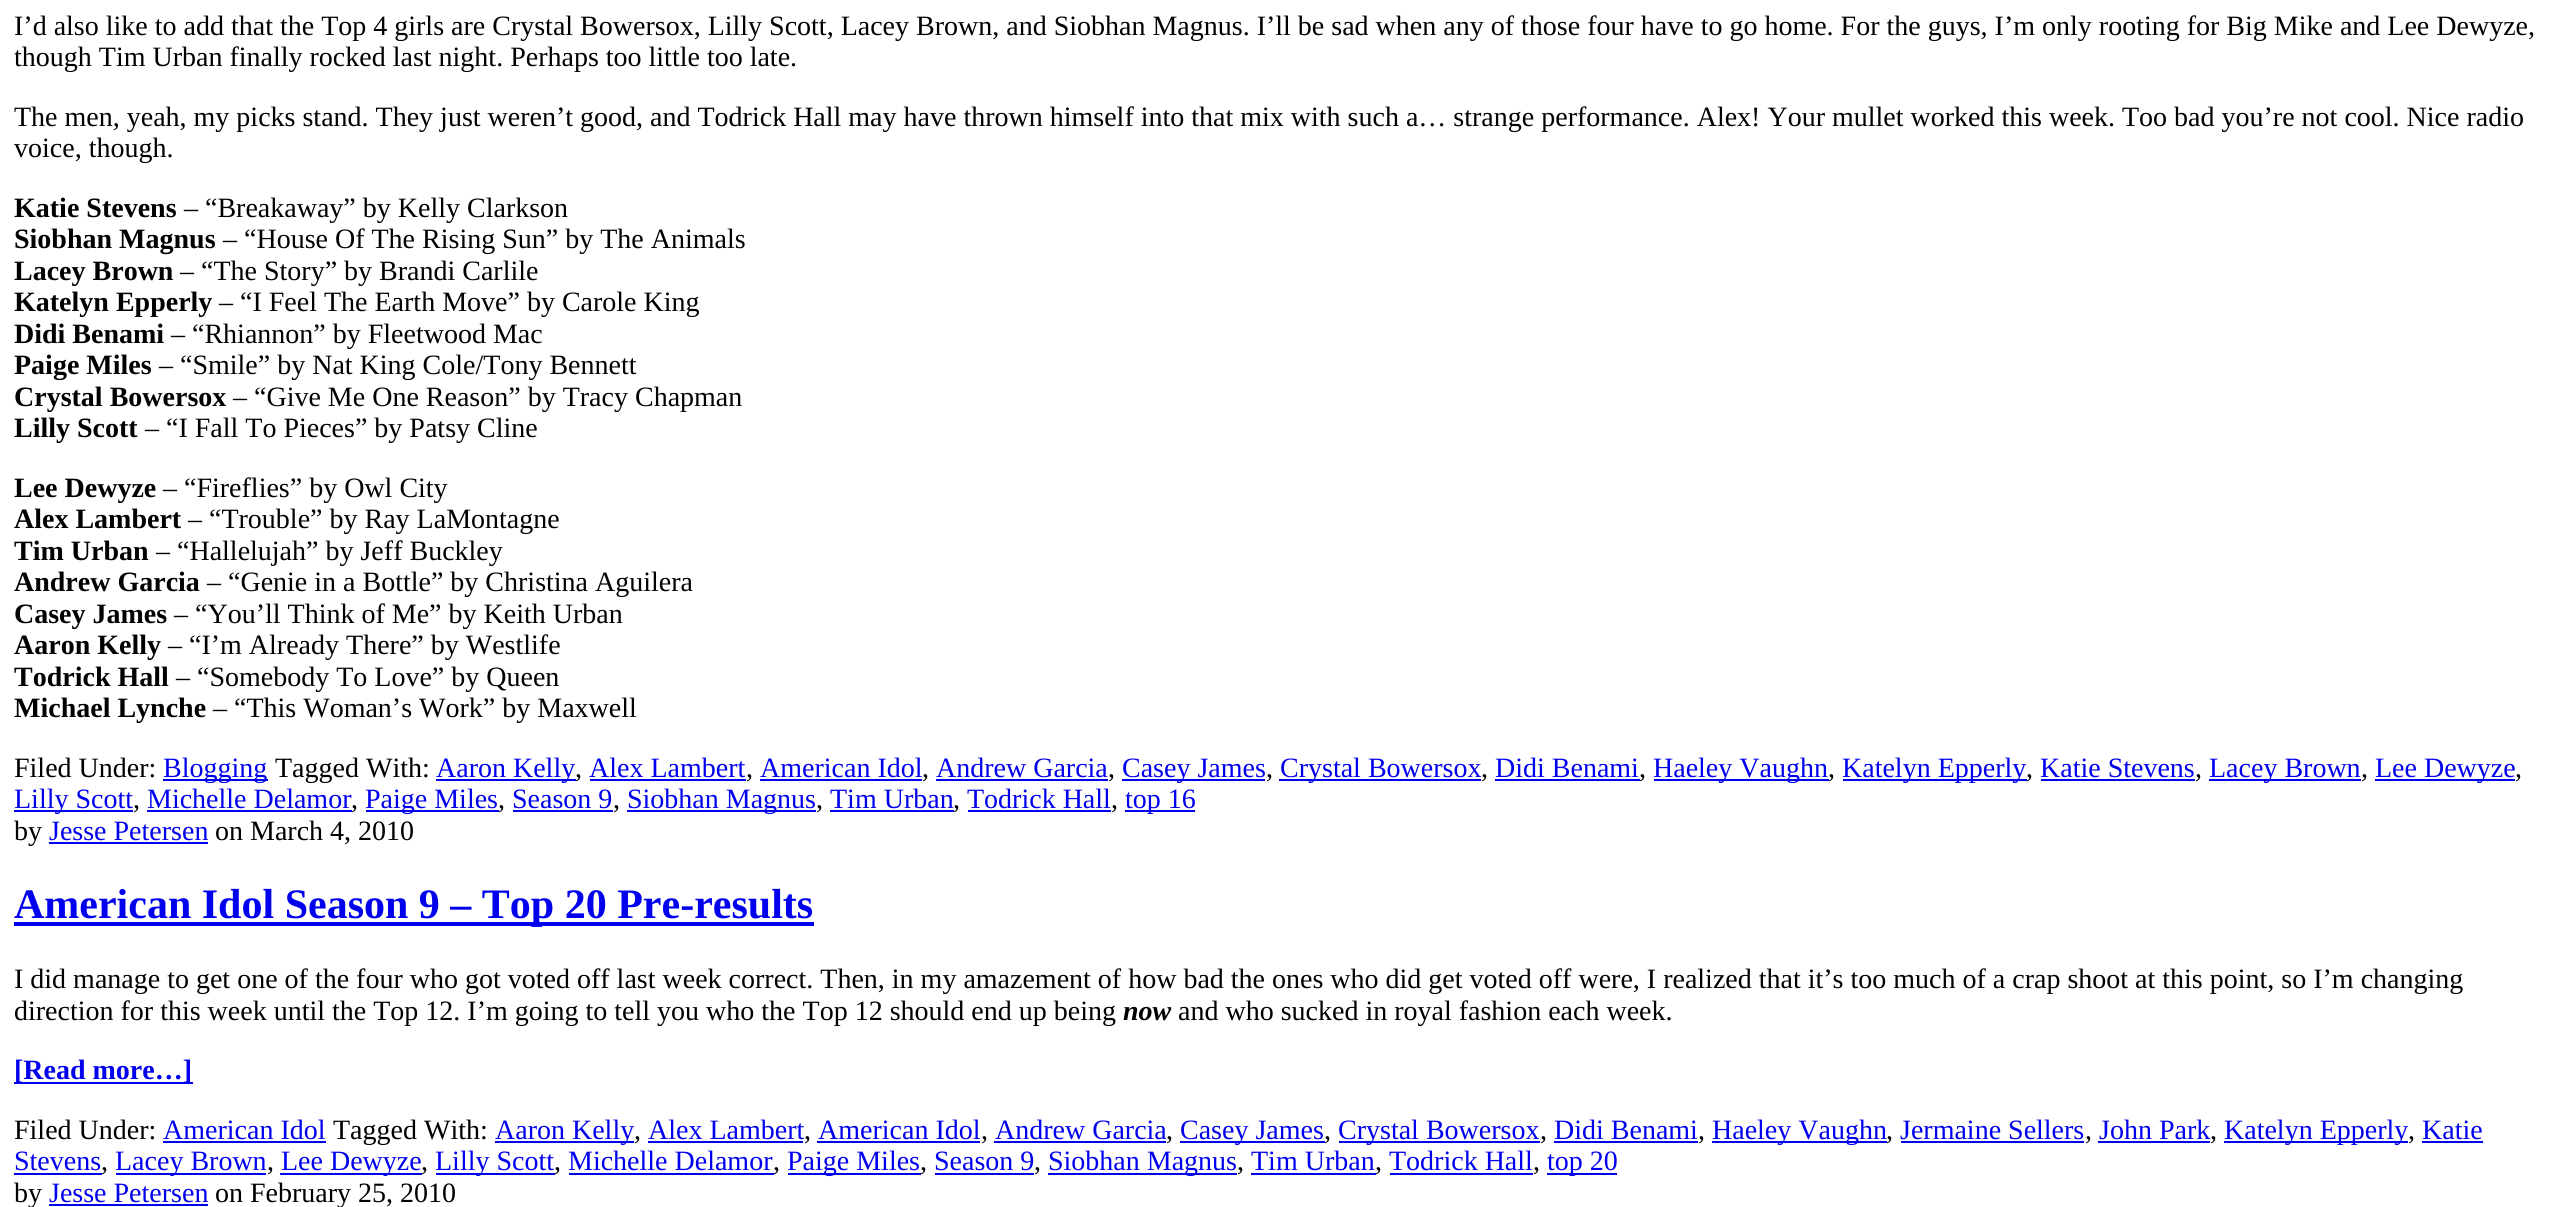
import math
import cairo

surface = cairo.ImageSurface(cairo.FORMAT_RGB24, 2564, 1207)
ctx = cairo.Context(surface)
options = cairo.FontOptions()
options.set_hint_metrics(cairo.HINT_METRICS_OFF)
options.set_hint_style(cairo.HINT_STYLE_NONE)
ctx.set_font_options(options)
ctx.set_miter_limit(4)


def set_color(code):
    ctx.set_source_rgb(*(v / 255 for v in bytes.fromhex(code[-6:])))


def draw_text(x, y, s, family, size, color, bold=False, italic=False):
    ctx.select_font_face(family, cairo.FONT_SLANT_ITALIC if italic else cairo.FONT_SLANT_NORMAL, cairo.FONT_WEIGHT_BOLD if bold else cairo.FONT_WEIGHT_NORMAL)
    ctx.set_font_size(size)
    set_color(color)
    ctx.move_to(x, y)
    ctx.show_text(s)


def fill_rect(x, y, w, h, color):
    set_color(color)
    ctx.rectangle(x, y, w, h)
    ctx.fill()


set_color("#ffffff")
ctx.paint()
draw_text(14, 35, "I’d also like to add that the Top 4 girls are Crystal Bowersox, Lilly Scott, Lacey Brown, and Siobhan Magnus. I’ll be sad when any of those four have to go home. For the guys, I’m only rooting for Big Mike and Lee Dewyze,", "Liberation Serif", 28, "#000000")
draw_text(14, 66, "though Tim Urban finally rocked last night. Perhaps too little too late.", "Liberation Serif", 28, "#000000")
draw_text(14, 126, "The men, yeah, my picks stand. They just weren’t good, and Todrick Hall may have thrown himself into that mix with such a… strange performance. Alex! Your mullet worked this week. Too bad you’re not cool. Nice radio", "Liberation Serif", 28, "#000000")
draw_text(14, 157, "voice, though.", "Liberation Serif", 28, "#000000")
draw_text(14, 217, "Katie Stevens", "Liberation Serif", 28, "#000000", bold=True)
draw_text(184, 217, "– “Breakaway” by Kelly Clarkson", "Liberation Serif", 28, "#000000")
draw_text(14, 248, "Siobhan Magnus", "Liberation Serif", 28, "#000000", bold=True)
draw_text(223, 248, "– “House Of The Rising Sun” by The Animals", "Liberation Serif", 28, "#000000")
draw_text(14, 280, "Lacey Brown", "Liberation Serif", 28, "#000000", bold=True)
draw_text(180, 280, "– “The Story” by Brandi Carlile", "Liberation Serif", 28, "#000000")
draw_text(14, 311, "Katelyn Epperly", "Liberation Serif", 28, "#000000", bold=True)
draw_text(219, 311, "– “I Feel The Earth Move” by Carole King", "Liberation Serif", 28, "#000000")
draw_text(14, 343, "Didi Benami", "Liberation Serif", 28, "#000000", bold=True)
draw_text(171, 343, "– “Rhiannon” by Fleetwood Mac", "Liberation Serif", 28, "#000000")
draw_text(14, 374, "Paige Miles", "Liberation Serif", 28, "#000000", bold=True)
draw_text(159, 374, "– “Smile” by Nat King Cole/Tony Bennett", "Liberation Serif", 28, "#000000")
draw_text(14, 406, "Crystal Bowersox", "Liberation Serif", 28, "#000000", bold=True)
draw_text(233, 406, "– “Give Me One Reason” by Tracy Chapman", "Liberation Serif", 28, "#000000")
draw_text(14, 437, "Lilly Scott", "Liberation Serif", 28, "#000000", bold=True)
draw_text(145, 437, "– “I Fall To Pieces” by Patsy Cline", "Liberation Serif", 28, "#000000")
draw_text(14, 497, "Lee Dewyze", "Liberation Serif", 28, "#000000", bold=True)
draw_text(163, 497, "– “Fireflies” by Owl City", "Liberation Serif", 28, "#000000")
draw_text(14, 528, "Alex Lambert", "Liberation Serif", 28, "#000000", bold=True)
draw_text(188, 528, "– “Trouble” by Ray LaMontagne", "Liberation Serif", 28, "#000000")
draw_text(14, 560, "Tim Urban", "Liberation Serif", 28, "#000000", bold=True)
draw_text(156, 560, "– “Hallelujah” by Jeff Buckley", "Liberation Serif", 28, "#000000")
draw_text(14, 591, "Andrew Garcia", "Liberation Serif", 28, "#000000", bold=True)
draw_text(207, 591, "– “Genie in a Bottle” by Christina Aguilera", "Liberation Serif", 28, "#000000")
draw_text(14, 623, "Casey James", "Liberation Serif", 28, "#000000", bold=True)
draw_text(174, 623, "– “You’ll Think of Me” by Keith Urban", "Liberation Serif", 28, "#000000")
draw_text(14, 654, "Aaron Kelly", "Liberation Serif", 28, "#000000", bold=True)
draw_text(168, 654, "– “I’m Already There” by Westlife", "Liberation Serif", 28, "#000000")
draw_text(14, 686, "Todrick Hall", "Liberation Serif", 28, "#000000", bold=True)
draw_text(176, 686, "– “Somebody To Love” by Queen", "Liberation Serif", 28, "#000000")
draw_text(14, 717, "Michael Lynche", "Liberation Serif", 28, "#000000", bold=True)
draw_text(213, 717, "– “This Woman’s Work” by Maxwell", "Liberation Serif", 28, "#000000")
draw_text(14, 777, "Filed Under:", "Liberation Serif", 28, "#000000")
fill_rect(163, 779, 105, 2, "#0000ee")
draw_text(163, 777, "Blogging", "Liberation Serif", 28, "#0000ee")
draw_text(275, 777, "Tagged With:", "Liberation Serif", 28, "#000000")
fill_rect(436, 779, 140, 2, "#0000ee")
draw_text(436, 777, "Aaron Kelly", "Liberation Serif", 28, "#0000ee")
draw_text(575, 777, ",", "Liberation Serif", 28, "#000000")
draw_text(589, 777, "Alex Lambert", "Liberation Serif", 28, "#0000ee")
draw_text(746, 777, ",", "Liberation Serif", 28, "#000000")
fill_rect(590, 779, 156, 2, "#0000ee")
draw_text(760, 777, "American Idol", "Liberation Serif", 28, "#0000ee")
draw_text(922, 777, ",", "Liberation Serif", 28, "#000000")
fill_rect(760, 779, 162, 2, "#0000ee")
draw_text(936, 777, "Andrew Garcia", "Liberation Serif", 28, "#0000ee")
draw_text(1108, 777, ",", "Liberation Serif", 28, "#000000")
fill_rect(936, 779, 172, 2, "#0000ee")
fill_rect(1122, 779, 143, 2, "#0000ee")
draw_text(1122, 777, "Casey James", "Liberation Serif", 28, "#0000ee")
draw_text(1266, 777, ",", "Liberation Serif", 28, "#000000")
fill_rect(1279, 779, 202, 2, "#0000ee")
draw_text(1280, 777, "Crystal Bowersox", "Liberation Serif", 28, "#0000ee")
draw_text(1481, 777, ",", "Liberation Serif", 28, "#000000")
draw_text(1495, 777, "Didi Benami", "Liberation Serif", 28, "#0000ee")
draw_text(1639, 777, ",", "Liberation Serif", 28, "#000000")
fill_rect(1495, 779, 145, 2, "#0000ee")
fill_rect(1654, 779, 175, 2, "#0000ee")
draw_text(1653, 777, "Haeley Vaughn", "Liberation Serif", 28, "#0000ee")
draw_text(1828, 777, ",", "Liberation Serif", 28, "#000000")
fill_rect(1843, 779, 184, 2, "#0000ee")
draw_text(1842, 777, "Katelyn Epperly", "Liberation Serif", 28, "#0000ee")
draw_text(2026, 777, ",", "Liberation Serif", 28, "#000000")
draw_text(2040, 777, "Katie Stevens", "Liberation Serif", 28, "#0000ee")
draw_text(2195, 777, ",", "Liberation Serif", 28, "#000000")
fill_rect(2041, 779, 154, 2, "#0000ee")
fill_rect(2209, 779, 152, 2, "#0000ee")
draw_text(2209, 777, "Lacey Brown", "Liberation Serif", 28, "#0000ee")
draw_text(2361, 777, ",", "Liberation Serif", 28, "#000000")
fill_rect(2375, 779, 140, 2, "#0000ee")
draw_text(2375, 777, "Lee Dewyze", "Liberation Serif", 28, "#0000ee")
draw_text(2515, 777, ",", "Liberation Serif", 28, "#000000")
fill_rect(14, 810, 119, 2, "#0000ee")
draw_text(14, 808, "Lilly Scott", "Liberation Serif", 28, "#0000ee")
draw_text(133, 808, ",", "Liberation Serif", 28, "#000000")
draw_text(147, 808, "Michelle Delamor", "Liberation Serif", 28, "#0000ee")
draw_text(351, 808, ",", "Liberation Serif", 28, "#000000")
fill_rect(147, 810, 205, 2, "#0000ee")
fill_rect(366, 810, 133, 2, "#0000ee")
draw_text(365, 808, "Paige Miles", "Liberation Serif", 28, "#0000ee")
draw_text(498, 808, ",", "Liberation Serif", 28, "#000000")
draw_text(512, 808, "Season 9", "Liberation Serif", 28, "#0000ee")
draw_text(613, 808, ",", "Liberation Serif", 28, "#000000")
fill_rect(513, 810, 100, 2, "#0000ee")
fill_rect(627, 810, 189, 2, "#0000ee")
draw_text(627, 808, "Siobhan Magnus", "Liberation Serif", 28, "#0000ee")
draw_text(816, 808, ",", "Liberation Serif", 28, "#000000")
draw_text(830, 808, "Tim Urban", "Liberation Serif", 28, "#0000ee")
draw_text(953, 808, ",", "Liberation Serif", 28, "#000000")
fill_rect(830, 810, 124, 2, "#0000ee")
draw_text(967, 808, "Todrick Hall", "Liberation Serif", 28, "#0000ee")
draw_text(1111, 808, ",", "Liberation Serif", 28, "#000000")
fill_rect(968, 810, 143, 2, "#0000ee")
fill_rect(1125, 810, 70, 2, "#0000ee")
draw_text(1125, 808, "top 16", "Liberation Serif", 28, "#0000ee")
draw_text(14, 840, "by", "Liberation Serif", 28, "#000000")
draw_text(49, 840, "Jesse Petersen", "Liberation Serif", 28, "#0000ee")
fill_rect(49, 842, 159, 2, "#0000ee")
draw_text(215, 840, "on March 4, 2010", "Liberation Serif", 28, "#000000")
fill_rect(14, 922, 800, 4, "#0000ee")
draw_text(14, 918, "American Idol Season 9 – Top 20 Pre-results", "Liberation Serif", 42, "#0000ee", bold=True)
draw_text(14, 988, "I did manage to get one of the four who got voted off last week correct. Then, in my amazement of how bad the ones who did get voted off were, I realized that it’s too much of a crap shoot at this point, so I’m changing", "Liberation Serif", 28, "#000000")
draw_text(14, 1020, "direction for this week until the Top 12. I’m going to tell you who the Top 12 should end up being", "Liberation Serif", 28, "#000000")
draw_text(1123, 1020, "now", "Liberation Serif", 28, "#000000", bold=True, italic=True)
draw_text(1178, 1020, "and who sucked in royal fashion each week.", "Liberation Serif", 28, "#000000")
fill_rect(14, 1082, 179, 2, "#0000ee")
draw_text(14, 1079, "[Read more…]", "Liberation Serif", 28, "#0000ee", bold=True)
draw_text(14, 1139, "Filed Under:", "Liberation Serif", 28, "#000000")
draw_text(163, 1139, "American Idol", "Liberation Serif", 28, "#0000ee")
fill_rect(163, 1141, 163, 2, "#0000ee")
draw_text(333, 1139, "Tagged With:", "Liberation Serif", 28, "#000000")
fill_rect(495, 1141, 139, 2, "#0000ee")
draw_text(495, 1139, "Aaron Kelly", "Liberation Serif", 28, "#0000ee")
draw_text(634, 1139, ",", "Liberation Serif", 28, "#000000")
draw_text(648, 1139, "Alex Lambert", "Liberation Serif", 28, "#0000ee")
draw_text(804, 1139, ",", "Liberation Serif", 28, "#000000")
fill_rect(648, 1141, 155, 2, "#0000ee")
draw_text(818, 1139, "American Idol", "Liberation Serif", 28, "#0000ee")
draw_text(981, 1139, ",", "Liberation Serif", 28, "#000000")
fill_rect(817, 1141, 163, 2, "#0000ee")
draw_text(995, 1139, "Andrew Garcia", "Liberation Serif", 28, "#0000ee")
draw_text(1166, 1139, ",", "Liberation Serif", 28, "#000000")
fill_rect(994, 1141, 172, 2, "#0000ee")
fill_rect(1180, 1141, 145, 2, "#0000ee")
draw_text(1180, 1139, "Casey James", "Liberation Serif", 28, "#0000ee")
draw_text(1324, 1139, ",", "Liberation Serif", 28, "#000000")
fill_rect(1339, 1141, 201, 2, "#0000ee")
draw_text(1338, 1139, "Crystal Bowersox", "Liberation Serif", 28, "#0000ee")
draw_text(1540, 1139, ",", "Liberation Serif", 28, "#000000")
draw_text(1554, 1139, "Didi Benami", "Liberation Serif", 28, "#0000ee")
draw_text(1698, 1139, ",", "Liberation Serif", 28, "#000000")
fill_rect(1554, 1141, 144, 2, "#0000ee")
fill_rect(1712, 1141, 175, 2, "#0000ee")
draw_text(1712, 1139, "Haeley Vaughn", "Liberation Serif", 28, "#0000ee")
draw_text(1886, 1139, ",", "Liberation Serif", 28, "#000000")
draw_text(1900, 1139, "Jermaine Sellers", "Liberation Serif", 28, "#0000ee")
draw_text(2085, 1139, ",", "Liberation Serif", 28, "#000000")
fill_rect(1901, 1141, 183, 2, "#0000ee")
draw_text(2099, 1139, "John Park", "Liberation Serif", 28, "#0000ee")
draw_text(2210, 1139, ",", "Liberation Serif", 28, "#000000")
fill_rect(2098, 1141, 112, 2, "#0000ee")
fill_rect(2224, 1141, 184, 2, "#0000ee")
draw_text(2224, 1139, "Katelyn Epperly", "Liberation Serif", 28, "#0000ee")
draw_text(2408, 1139, ",", "Liberation Serif", 28, "#000000")
fill_rect(2422, 1141, 61, 2, "#0000ee")
draw_text(2422, 1139, "Katie", "Liberation Serif", 28, "#0000ee")
draw_text(14, 1170, "Stevens", "Liberation Serif", 28, "#0000ee")
draw_text(101, 1170, ",", "Liberation Serif", 28, "#000000")
fill_rect(14, 1173, 88, 2, "#0000ee")
fill_rect(116, 1173, 150, 2, "#0000ee")
draw_text(115, 1170, "Lacey Brown", "Liberation Serif", 28, "#0000ee")
draw_text(267, 1170, ",", "Liberation Serif", 28, "#000000")
fill_rect(280, 1173, 142, 2, "#0000ee")
draw_text(281, 1170, "Lee Dewyze", "Liberation Serif", 28, "#0000ee")
draw_text(421, 1170, ",", "Liberation Serif", 28, "#000000")
fill_rect(436, 1173, 119, 2, "#0000ee")
draw_text(435, 1170, "Lilly Scott", "Liberation Serif", 28, "#0000ee")
draw_text(554, 1170, ",", "Liberation Serif", 28, "#000000")
draw_text(568, 1170, "Michelle Delamor", "Liberation Serif", 28, "#0000ee")
fill_rect(569, 1173, 205, 2, "#0000ee")
draw_text(773, 1170, ",", "Liberation Serif", 28, "#000000")
fill_rect(788, 1173, 133, 2, "#0000ee")
draw_text(787, 1170, "Paige Miles", "Liberation Serif", 28, "#0000ee")
draw_text(920, 1170, ",", "Liberation Serif", 28, "#000000")
draw_text(934, 1170, "Season 9", "Liberation Serif", 28, "#0000ee")
draw_text(1034, 1170, ",", "Liberation Serif", 28, "#000000")
fill_rect(935, 1173, 99, 2, "#0000ee")
fill_rect(1048, 1173, 189, 2, "#0000ee")
draw_text(1048, 1170, "Siobhan Magnus", "Liberation Serif", 28, "#0000ee")
draw_text(1237, 1170, ",", "Liberation Serif", 28, "#000000")
draw_text(1251, 1170, "Tim Urban", "Liberation Serif", 28, "#0000ee")
fill_rect(1251, 1173, 125, 2, "#0000ee")
draw_text(1375, 1170, ",", "Liberation Serif", 28, "#000000")
draw_text(1389, 1170, "Todrick Hall", "Liberation Serif", 28, "#0000ee")
draw_text(1533, 1170, ",", "Liberation Serif", 28, "#000000")
fill_rect(1390, 1173, 143, 2, "#0000ee")
fill_rect(1547, 1173, 70, 2, "#0000ee")
draw_text(1547, 1170, "top 20", "Liberation Serif", 28, "#0000ee")
draw_text(14, 1202, "by", "Liberation Serif", 28, "#000000")
draw_text(49, 1202, "Jesse Petersen", "Liberation Serif", 28, "#0000ee")
fill_rect(49, 1204, 159, 2, "#0000ee")
draw_text(215, 1202, "on February 25, 2010", "Liberation Serif", 28, "#000000")
surface.write_to_png("output.png")
